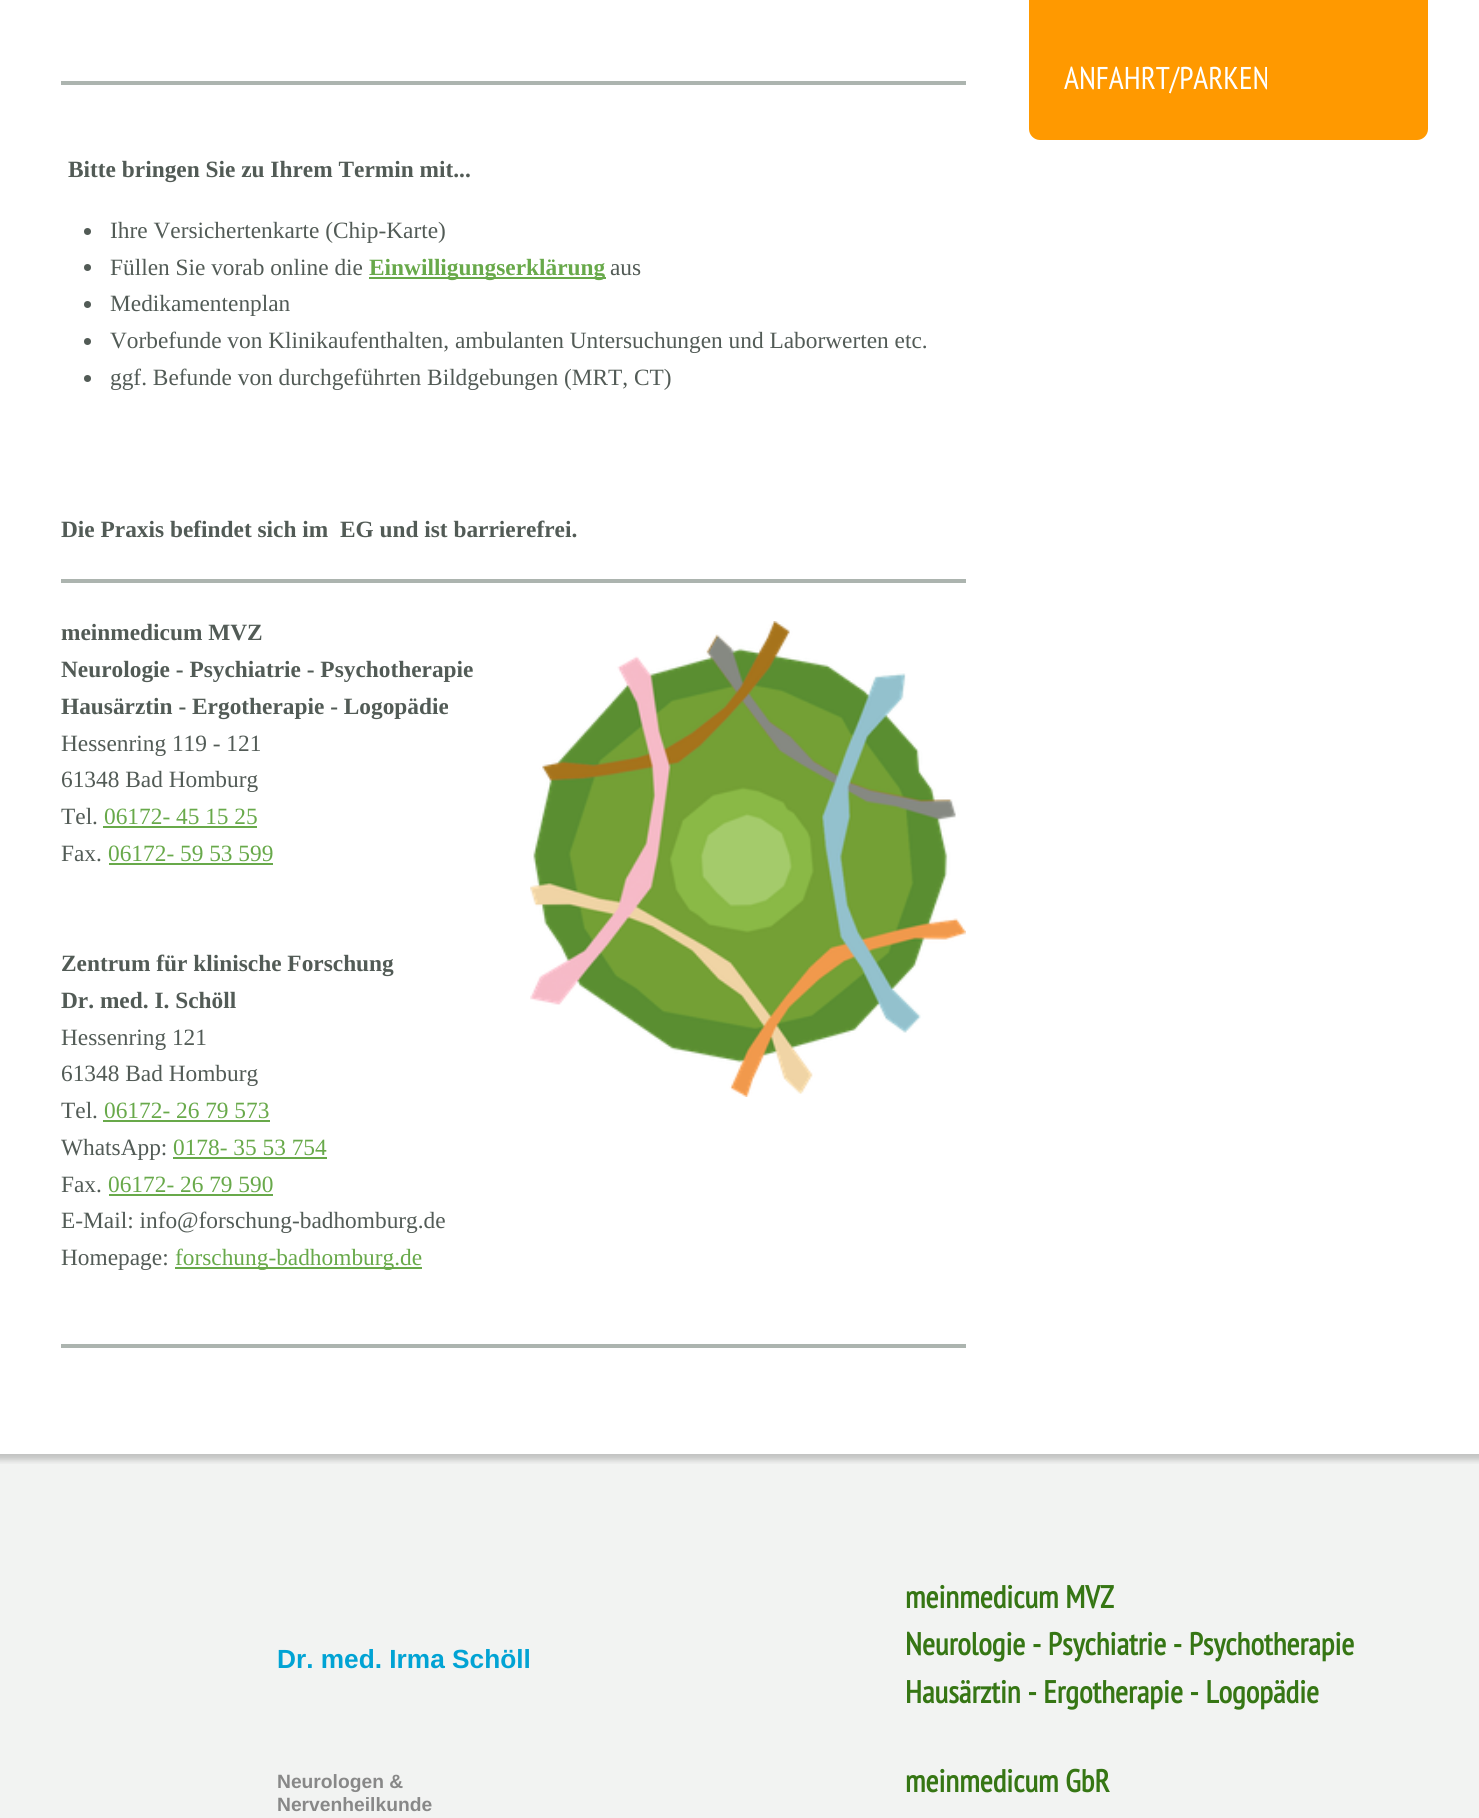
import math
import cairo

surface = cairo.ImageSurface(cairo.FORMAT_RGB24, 1479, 1818)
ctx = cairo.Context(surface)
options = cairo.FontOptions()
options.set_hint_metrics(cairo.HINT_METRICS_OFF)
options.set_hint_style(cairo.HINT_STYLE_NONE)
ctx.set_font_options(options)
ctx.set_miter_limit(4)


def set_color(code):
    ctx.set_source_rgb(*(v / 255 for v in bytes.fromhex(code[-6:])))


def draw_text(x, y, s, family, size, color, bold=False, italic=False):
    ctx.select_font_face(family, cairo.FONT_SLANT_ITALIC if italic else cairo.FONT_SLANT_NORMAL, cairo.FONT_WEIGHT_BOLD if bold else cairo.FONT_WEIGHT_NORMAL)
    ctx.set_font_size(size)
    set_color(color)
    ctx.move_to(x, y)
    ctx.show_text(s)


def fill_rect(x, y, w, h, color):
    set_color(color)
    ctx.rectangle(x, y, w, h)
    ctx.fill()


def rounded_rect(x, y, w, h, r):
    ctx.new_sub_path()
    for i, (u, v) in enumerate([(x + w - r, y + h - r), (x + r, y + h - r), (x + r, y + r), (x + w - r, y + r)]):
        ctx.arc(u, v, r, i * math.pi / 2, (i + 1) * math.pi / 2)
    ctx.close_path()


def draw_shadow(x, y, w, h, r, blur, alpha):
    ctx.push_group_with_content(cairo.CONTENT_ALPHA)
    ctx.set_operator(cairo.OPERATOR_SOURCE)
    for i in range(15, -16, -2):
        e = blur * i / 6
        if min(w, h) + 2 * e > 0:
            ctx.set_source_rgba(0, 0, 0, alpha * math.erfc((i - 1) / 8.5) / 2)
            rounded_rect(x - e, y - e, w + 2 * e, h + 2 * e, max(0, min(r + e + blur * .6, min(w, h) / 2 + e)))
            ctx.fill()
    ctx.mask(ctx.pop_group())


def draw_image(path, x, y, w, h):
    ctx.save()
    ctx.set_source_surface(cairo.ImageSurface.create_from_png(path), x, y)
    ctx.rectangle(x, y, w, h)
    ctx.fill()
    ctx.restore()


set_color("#ffffff")
ctx.paint()
fill_rect(0, 1454, 1479, 364, "#f2f3f2")
ctx.save()
ctx.rectangle(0, 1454, 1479, 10)
ctx.clip()
set_color("#000000")
draw_shadow(-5, -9, 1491, 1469, 0, 3, 0.2)
ctx.restore()
fill_rect(1029, 0, 399, 35, "#ff9900")
ctx.new_path()
ctx.move_to(1029, 35)
ctx.line_to(1428, 35)
ctx.line_to(1428, 129)
ctx.curve_to(1428, 135, 1423, 140, 1417, 140)
ctx.line_to(1040, 140)
ctx.curve_to(1034, 140, 1029, 135, 1029, 129)
ctx.close_path()
ctx.fill()
draw_text(1064, 89, "ANFAHRT/PARKEN", "PT Sans Narrow", 31.5, "#ffffff")
fill_rect(61, 81, 905, 4, "#acb4af")
draw_text(68, 177, "Bitte bringen Sie zu Ihrem Termin mit...", "Liberation Serif", 23.35, "#525b56", bold=True)
ctx.new_path()
ctx.arc(87.5, 231.5, 3.5, 0, 2 * math.pi)
ctx.fill()
draw_text(110, 238, "Ihre Versichertenkarte (Chip-Karte)", "Liberation Serif", 23.35, "#525b56")
ctx.new_path()
ctx.arc(87.5, 267.5, 3.5, 0, 2 * math.pi)
ctx.fill()
draw_text(110, 275, "Füllen Sie vorab online die", "Liberation Serif", 23.35, "#525b56")
fill_rect(369, 277, 237, 2, "#68a94a")
draw_text(369, 275, "Einwilligungserklärung", "Liberation Serif", 23.35, "#68a94a", bold=True)
draw_text(610, 275, "aus", "Liberation Serif", 23.35, "#525b56")
ctx.new_path()
ctx.arc(87.5, 304.5, 3.5, 0, 2 * math.pi)
ctx.fill()
draw_text(110, 311, "Medikamentenplan", "Liberation Serif", 23.35, "#525b56")
ctx.new_path()
ctx.arc(87.5, 341.5, 3.5, 0, 2 * math.pi)
ctx.fill()
draw_text(110, 348, "Vorbefunde von Klinikaufenthalten, ambulanten Untersuchungen und Laborwerten etc.", "Liberation Serif", 23.35, "#525b56")
ctx.new_path()
ctx.arc(87.5, 378.5, 3.5, 0, 2 * math.pi)
ctx.fill()
draw_text(110, 385, "ggf. Befunde von durchgeführten Bildgebungen (MRT, CT)", "Liberation Serif", 23.35, "#525b56")
draw_text(61, 537, "Die Praxis befindet sich im  EG und ist barrierefrei.", "Liberation Serif", 23.35, "#525b56", bold=True)
fill_rect(61, 579, 905, 4, "#acb4af")
draw_text(61, 640, "meinmedicum MVZ", "Liberation Serif", 23.35, "#525b56", bold=True)
draw_text(61, 677, "Neurologie - Psychiatrie - Psychotherapie", "Liberation Serif", 23.35, "#525b56", bold=True)
draw_text(61, 714, "Hausärztin - Ergotherapie - Logopädie", "Liberation Serif", 23.35, "#525b56", bold=True)
draw_text(61, 751, "Hessenring 119 - 121", "Liberation Serif", 23.35, "#525b56")
draw_text(61, 787, "61348 Bad Homburg", "Liberation Serif", 23.35, "#525b56")
draw_text(61, 824, "Tel.", "Liberation Serif", 23.35, "#525b56")
draw_text(104, 824, "06172- 45 15 25", "Liberation Serif", 23.35, "#68a94a")
fill_rect(103, 826, 154, 2, "#68a94a")
draw_text(61, 861, "Fax.", "Liberation Serif", 23.35, "#525b56")
draw_text(108, 861, "06172- 59 53 599", "Liberation Serif", 23.35, "#68a94a")
fill_rect(109, 863, 164, 2, "#68a94a")
draw_text(61, 971, "Zentrum für klinische Forschung", "Liberation Serif", 23.35, "#525b56", bold=True)
draw_text(61, 1008, "Dr. med. I. Schöll", "Liberation Serif", 23.35, "#525b56", bold=True)
draw_text(61, 1045, "Hessenring 121", "Liberation Serif", 23.35, "#525b56")
draw_text(61, 1081, "61348 Bad Homburg", "Liberation Serif", 23.35, "#525b56")
draw_text(61, 1118, "Tel.", "Liberation Serif", 23.35, "#525b56")
draw_text(104, 1118, "06172- 26 79 573", "Liberation Serif", 23.35, "#68a94a")
fill_rect(103, 1120, 167, 2, "#68a94a")
draw_text(61, 1155, "WhatsApp:", "Liberation Serif", 23.35, "#525b56")
draw_text(173, 1155, "0178- 35 53 754", "Liberation Serif", 23.35, "#68a94a")
fill_rect(173, 1157, 154, 2, "#68a94a")
draw_text(61, 1192, "Fax.", "Liberation Serif", 23.35, "#525b56")
draw_text(108, 1192, "06172- 26 79 590", "Liberation Serif", 23.35, "#68a94a")
fill_rect(109, 1194, 164, 2, "#68a94a")
draw_text(61, 1228, "E-Mail: info@forschung-badhomburg.de", "Liberation Serif", 23.35, "#525b56")
draw_text(61, 1265, "Homepage:", "Liberation Serif", 23.35, "#525b56")
fill_rect(175, 1267, 247, 2, "#68a94a")
draw_text(175, 1265, "forschung-badhomburg.de", "Liberation Serif", 23.35, "#68a94a")
draw_image("assets/img1.png", 530, 621, 436, 476)
fill_rect(61, 1344, 905, 4, "#acb4af")
draw_text(277, 1668, "Dr. med. Irma Schöll", "Liberation Sans", 26.25, "#01a3d4", bold=True)
draw_text(277, 1788, "Neurologen &", "Liberation Sans", 19.25, "#888888", bold=True)
draw_text(277, 1811, "Nervenheilkunde", "Liberation Sans", 19.25, "#888888", bold=True)
draw_text(905, 1608, "meinmedicum MVZ", "PT Sans Narrow", 31.5, "#367614", bold=True)
draw_text(905, 1655, "Neurologie - Psychiatrie - Psychotherapie", "PT Sans Narrow", 31.5, "#367614", bold=True)
draw_text(905, 1703, "Hausärztin - Ergotherapie - Logopädie", "PT Sans Narrow", 31.5, "#367614", bold=True)
draw_text(905, 1792, "meinmedicum GbR", "PT Sans Narrow", 31.5, "#367614", bold=True)
surface.write_to_png("output.png")
